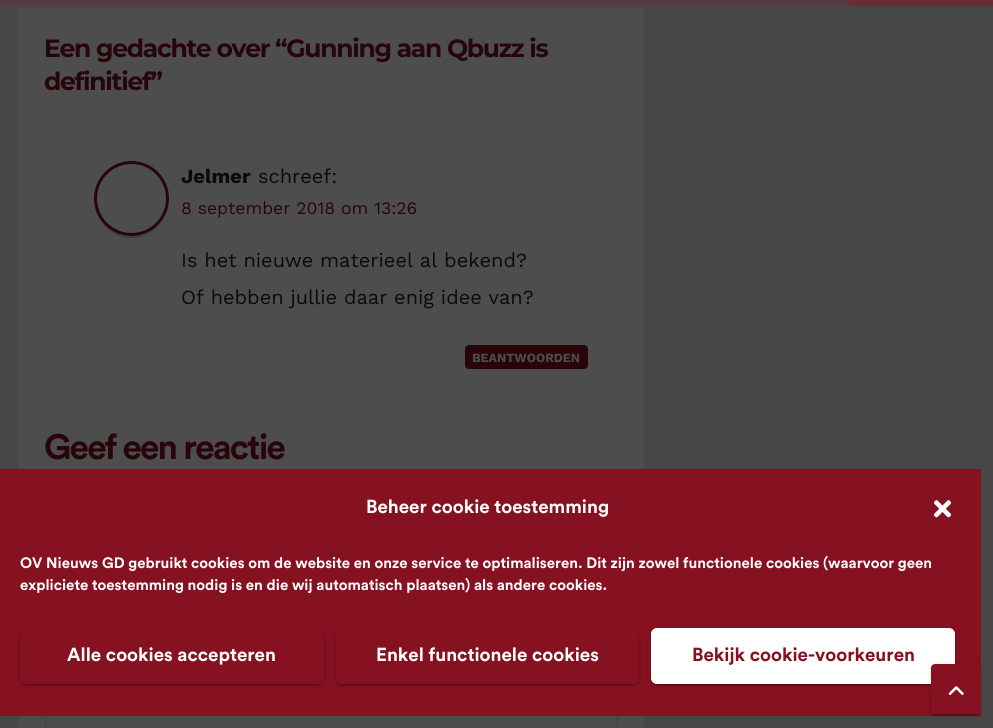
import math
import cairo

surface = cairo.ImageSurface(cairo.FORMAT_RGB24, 993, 728)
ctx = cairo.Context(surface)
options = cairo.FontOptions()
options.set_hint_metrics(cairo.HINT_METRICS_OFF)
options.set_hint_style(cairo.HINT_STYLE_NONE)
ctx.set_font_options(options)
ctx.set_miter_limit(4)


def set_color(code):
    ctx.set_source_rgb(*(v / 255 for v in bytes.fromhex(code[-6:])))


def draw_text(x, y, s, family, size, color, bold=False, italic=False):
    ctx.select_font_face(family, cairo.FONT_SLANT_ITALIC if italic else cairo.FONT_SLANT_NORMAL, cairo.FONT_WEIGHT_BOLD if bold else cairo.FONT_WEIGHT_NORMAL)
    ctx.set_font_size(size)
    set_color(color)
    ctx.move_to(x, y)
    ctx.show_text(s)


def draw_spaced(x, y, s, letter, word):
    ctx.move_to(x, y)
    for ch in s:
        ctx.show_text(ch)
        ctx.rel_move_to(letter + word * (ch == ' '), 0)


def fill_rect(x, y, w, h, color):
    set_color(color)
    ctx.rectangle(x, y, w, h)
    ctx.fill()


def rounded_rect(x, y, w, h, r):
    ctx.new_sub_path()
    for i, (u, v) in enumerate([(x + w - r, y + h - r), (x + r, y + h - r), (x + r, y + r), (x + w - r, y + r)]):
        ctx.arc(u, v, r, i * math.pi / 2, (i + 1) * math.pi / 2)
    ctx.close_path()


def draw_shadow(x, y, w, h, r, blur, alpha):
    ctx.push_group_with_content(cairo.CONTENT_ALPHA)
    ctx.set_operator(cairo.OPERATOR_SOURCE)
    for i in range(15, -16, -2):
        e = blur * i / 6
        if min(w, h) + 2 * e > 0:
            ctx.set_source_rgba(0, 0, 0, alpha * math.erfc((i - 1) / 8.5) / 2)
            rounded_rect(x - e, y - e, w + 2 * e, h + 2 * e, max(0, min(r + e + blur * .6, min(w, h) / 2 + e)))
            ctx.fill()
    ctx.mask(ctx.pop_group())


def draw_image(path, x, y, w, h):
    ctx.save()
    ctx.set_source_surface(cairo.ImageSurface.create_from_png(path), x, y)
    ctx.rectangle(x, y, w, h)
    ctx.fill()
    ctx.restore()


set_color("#474747")
ctx.paint()
fill_rect(0, 0, 849, 6, "#573a3e")
fill_rect(849, 0, 144, 6, "#672c34")
fill_rect(19, 8, 625, 720, "#4d4d4d")
ctx.select_font_face("Montserrat", cairo.FONT_SLANT_NORMAL, cairo.FONT_WEIGHT_BOLD)
ctx.set_font_size(25)
set_color("#28050a")
draw_spaced(44, 57, "Een gedachte over “Gunning aan Qbuzz is", -1.25, 0)
draw_spaced(44, 90, "definitief”", -1.25, 0)
fill_rect(96, 125, 522, 1, "#484848")
ctx.save()
ctx.set_fill_rule(cairo.FILL_RULE_EVEN_ODD)
ctx.new_path()
ctx.move_to(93, 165)
ctx.line_to(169, 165)
ctx.line_to(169, 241)
ctx.line_to(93, 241)
ctx.close_path()
ctx.move_to(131.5, 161)
ctx.curve_to(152, 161, 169, 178, 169, 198.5)
ctx.curve_to(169, 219, 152, 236, 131.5, 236)
ctx.curve_to(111, 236, 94, 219, 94, 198.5)
ctx.curve_to(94, 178, 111, 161, 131.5, 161)
ctx.close_path()
ctx.clip()
set_color("#000000")
draw_shadow(96, 168, 70, 70, 35, 0.5, 0.2)
ctx.restore()
ctx.arc(131.5, 198.5, 36, 0, 2 * math.pi)
set_color("#28050a")
ctx.set_line_width(3)
ctx.stroke()
draw_text(181, 183, "Jelmer", "Work Sans", 20, "#0a0a0a", bold=True)
draw_text(258, 183, "schreef:", "Work Sans", 20, "#0a0a0a")
draw_text(181, 214, "8 september 2018 om 13:26", "Work Sans", 17.5, "#28050a")
draw_text(181, 267, "Is het nieuwe materieel al bekend?", "Work Sans", 20, "#0a0a0a")
draw_text(181, 304, "Of hebben jullie daar enig idee van?", "Work Sans", 20, "#0a0a0a")
set_color("#28050a")
rounded_rect(465, 345, 123, 24, 4)
ctx.fill()
draw_text(472, 362, "BEANTWOORDEN", "Work Sans", 12.5, "#4d4d4d", bold=True)
ctx.select_font_face("Circular", cairo.FONT_SLANT_NORMAL, cairo.FONT_WEIGHT_BOLD)
ctx.set_font_size(35)
set_color("#28050a")
draw_spaced(44, 459, "Geef een reactie", -1.75, 0)
ctx.rectangle(45.5, 642.5, 572, 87)
set_color("#47494b")
ctx.stroke()
fill_rect(0, 469, 981, 247, "#861121")
draw_text(366, 513, "Beheer cookie toestemming", "Circular", 18.75, "#ffffff", bold=True)
draw_image("assets/img1.png", 933, 500, 19, 18)
draw_text(20, 568, "OV Nieuws GD gebruikt cookies om de website en onze service te optimaliseren. Dit zijn zowel functionele cookies (waarvoor geen", "Circular", 15, "#ffffff", bold=True)
draw_text(20, 590, "expliciete toestemming nodig is en die wij automatisch plaatsen) als andere cookies.", "Circular", 15, "#ffffff", bold=True)
set_color("#000000")
draw_shadow(20, 629, 304, 56, 6, 3, 0.12)
draw_shadow(23, 634, 298, 51, 4, 0.5, 0.2)
draw_shadow(20, 630, 304, 56, 6, 1, 0.14)
set_color("#861121")
rounded_rect(20.5, 628.5, 303, 55, 5.5)
ctx.fill_preserve()
ctx.set_line_width(1)
ctx.stroke()
draw_text(67, 661, "Alle cookies accepteren", "Circular", 18.75, "#ffffff", bold=True)
set_color("#000000")
draw_shadow(336, 629, 303, 56, 6, 3, 0.12)
draw_shadow(339, 634, 297, 51, 4, 0.5, 0.2)
draw_shadow(336, 630, 303, 56, 6, 1, 0.14)
set_color("#861121")
rounded_rect(336.5, 628.5, 302, 55, 5.5)
ctx.fill_preserve()
ctx.stroke()
draw_text(376, 661, "Enkel functionele cookies", "Circular", 18.75, "#ffffff", bold=True)
set_color("#000000")
draw_shadow(651, 629, 304, 56, 6, 3, 0.12)
draw_shadow(654, 634, 299, 51, 4, 0.5, 0.2)
draw_shadow(651, 630, 304, 56, 6, 1, 0.14)
set_color("#ffffff")
rounded_rect(651.5, 628.5, 303, 55, 5.5)
ctx.fill_preserve()
ctx.stroke()
draw_text(692, 661, "Bekijk cookie-voorkeuren", "Circular", 18.75, "#861121", bold=True)
set_color("#000000")
draw_shadow(931, 665, 50, 50, 4, 3, 0.12)
draw_shadow(934, 670, 45, 45, 1, 0.5, 0.2)
draw_shadow(931, 666, 50, 50, 4, 1, 0.14)
set_color("#861121")
rounded_rect(932.5, 665.5, 47, 47, 2.5)
ctx.fill_preserve()
ctx.set_line_width(3)
ctx.stroke()
draw_image("assets/img2.png", 948, 686, 16, 9)
surface.write_to_png("output.png")
